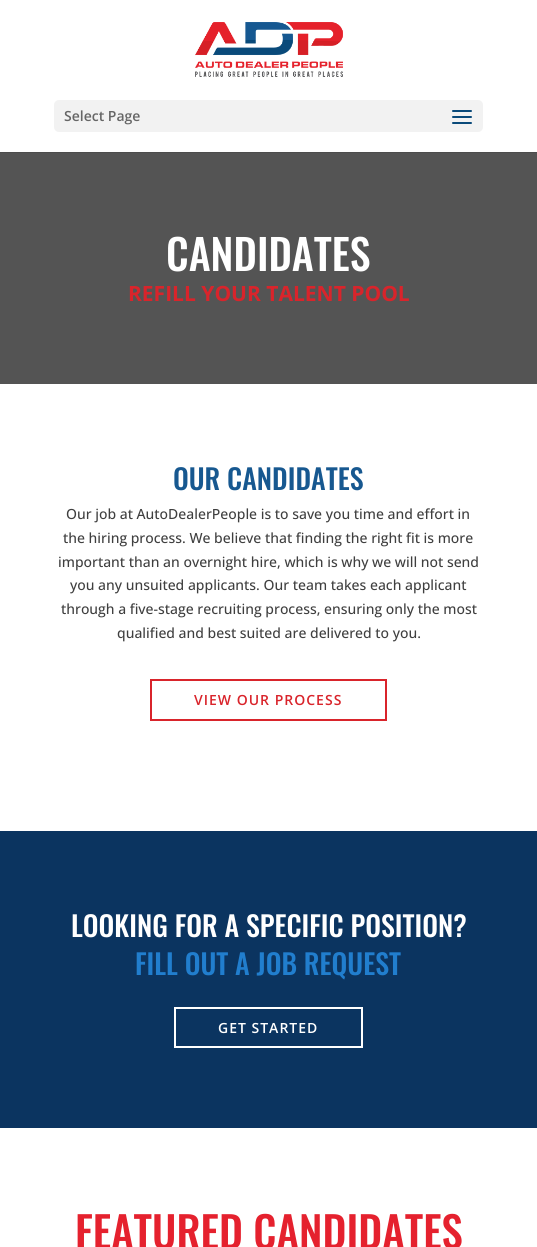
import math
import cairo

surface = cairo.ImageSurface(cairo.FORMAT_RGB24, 537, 1247)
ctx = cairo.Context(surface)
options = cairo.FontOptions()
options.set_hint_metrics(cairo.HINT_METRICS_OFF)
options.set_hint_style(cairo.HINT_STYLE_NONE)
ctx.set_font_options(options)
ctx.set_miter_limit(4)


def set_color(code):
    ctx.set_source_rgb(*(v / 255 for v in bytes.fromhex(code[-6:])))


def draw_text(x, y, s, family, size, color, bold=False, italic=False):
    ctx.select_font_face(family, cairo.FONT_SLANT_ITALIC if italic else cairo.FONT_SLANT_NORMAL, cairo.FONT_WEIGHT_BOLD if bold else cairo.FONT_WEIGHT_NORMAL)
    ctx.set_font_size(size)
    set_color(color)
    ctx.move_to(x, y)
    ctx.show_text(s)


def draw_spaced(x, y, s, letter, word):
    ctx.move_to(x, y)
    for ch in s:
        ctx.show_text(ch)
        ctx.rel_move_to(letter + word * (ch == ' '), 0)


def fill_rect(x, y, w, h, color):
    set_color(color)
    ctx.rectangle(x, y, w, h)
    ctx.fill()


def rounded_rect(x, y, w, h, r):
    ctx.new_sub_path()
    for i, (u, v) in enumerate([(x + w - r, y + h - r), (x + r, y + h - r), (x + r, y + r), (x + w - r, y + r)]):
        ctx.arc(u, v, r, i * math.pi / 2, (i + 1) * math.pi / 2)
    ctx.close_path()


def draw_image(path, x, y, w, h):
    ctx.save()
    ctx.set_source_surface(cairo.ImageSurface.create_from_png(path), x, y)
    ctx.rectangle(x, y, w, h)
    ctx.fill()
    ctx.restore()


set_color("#ffffff")
ctx.paint()
fill_rect(0, 152, 537, 1, "#4c4c4c")
draw_image("assets/img1.png", 195, 22, 148, 55)
set_color("#f2f2f2")
rounded_rect(54, 100, 429, 32, 5)
ctx.fill()
draw_text(64, 121, "Select Page", "Open Sans SemiBold", 14, "#666666")
draw_image("assets/img2.png", 452, 110, 20, 14)
fill_rect(0, 153, 537, 231, "#545454")
draw_text(166, 271, "CANDIDATES", "Oswald Medium", 42, "#ffffff")
draw_text(128, 301, "REFILL YOUR TALENT POOL", "Open Sans", 21, "#d9242b", bold=True)
draw_text(173, 490, "OUR CANDIDATES", "Oswald Medium", 28, "#175890")
draw_text(66, 519, "Our job at AutoDealerPeople is to save you time and effort in", "Open Sans Medium", 14, "#3f3f3f")
draw_text(63, 543, "the hiring process. We believe that finding the right fit is more", "Open Sans Medium", 14, "#3f3f3f")
draw_text(58, 567, "important than an overnight hire, which is why we will not send", "Open Sans Medium", 14, "#3f3f3f")
draw_text(70, 590, "you any unsuited applicants. Our team takes each applicant", "Open Sans Medium", 14, "#3f3f3f")
draw_text(61, 614, "through a five-stage recruiting process, ensuring only the most", "Open Sans Medium", 14, "#3f3f3f")
draw_text(117, 638, "qualified and best suited are delivered to you.", "Open Sans Medium", 14, "#3f3f3f")
ctx.rectangle(151, 680, 235, 40)
set_color("#d9242b")
ctx.stroke()
ctx.select_font_face("Open Sans SemiBold")
draw_spaced(194, 705, "VIEW OUR PROCESS", 1, 0)
fill_rect(0, 831, 537, 297, "#0b3460")
draw_text(71, 937, "LOOKING FOR A SPECIFIC POSITION?", "Oswald Medium", 28, "#ffffff")
draw_text(135, 975, "FILL OUT A JOB REQUEST", "Oswald Medium", 28, "#217ece")
ctx.rectangle(175, 1008, 187, 39)
set_color("#ffffff")
ctx.stroke()
ctx.select_font_face("Open Sans SemiBold")
ctx.set_font_size(14)
draw_spaced(218, 1033, "GET STARTED", 1, 0)
draw_text(75, 1249, "FEATURED CANDIDATES", "Oswald Medium", 43, "#e5212e")
surface.write_to_png("output.png")
